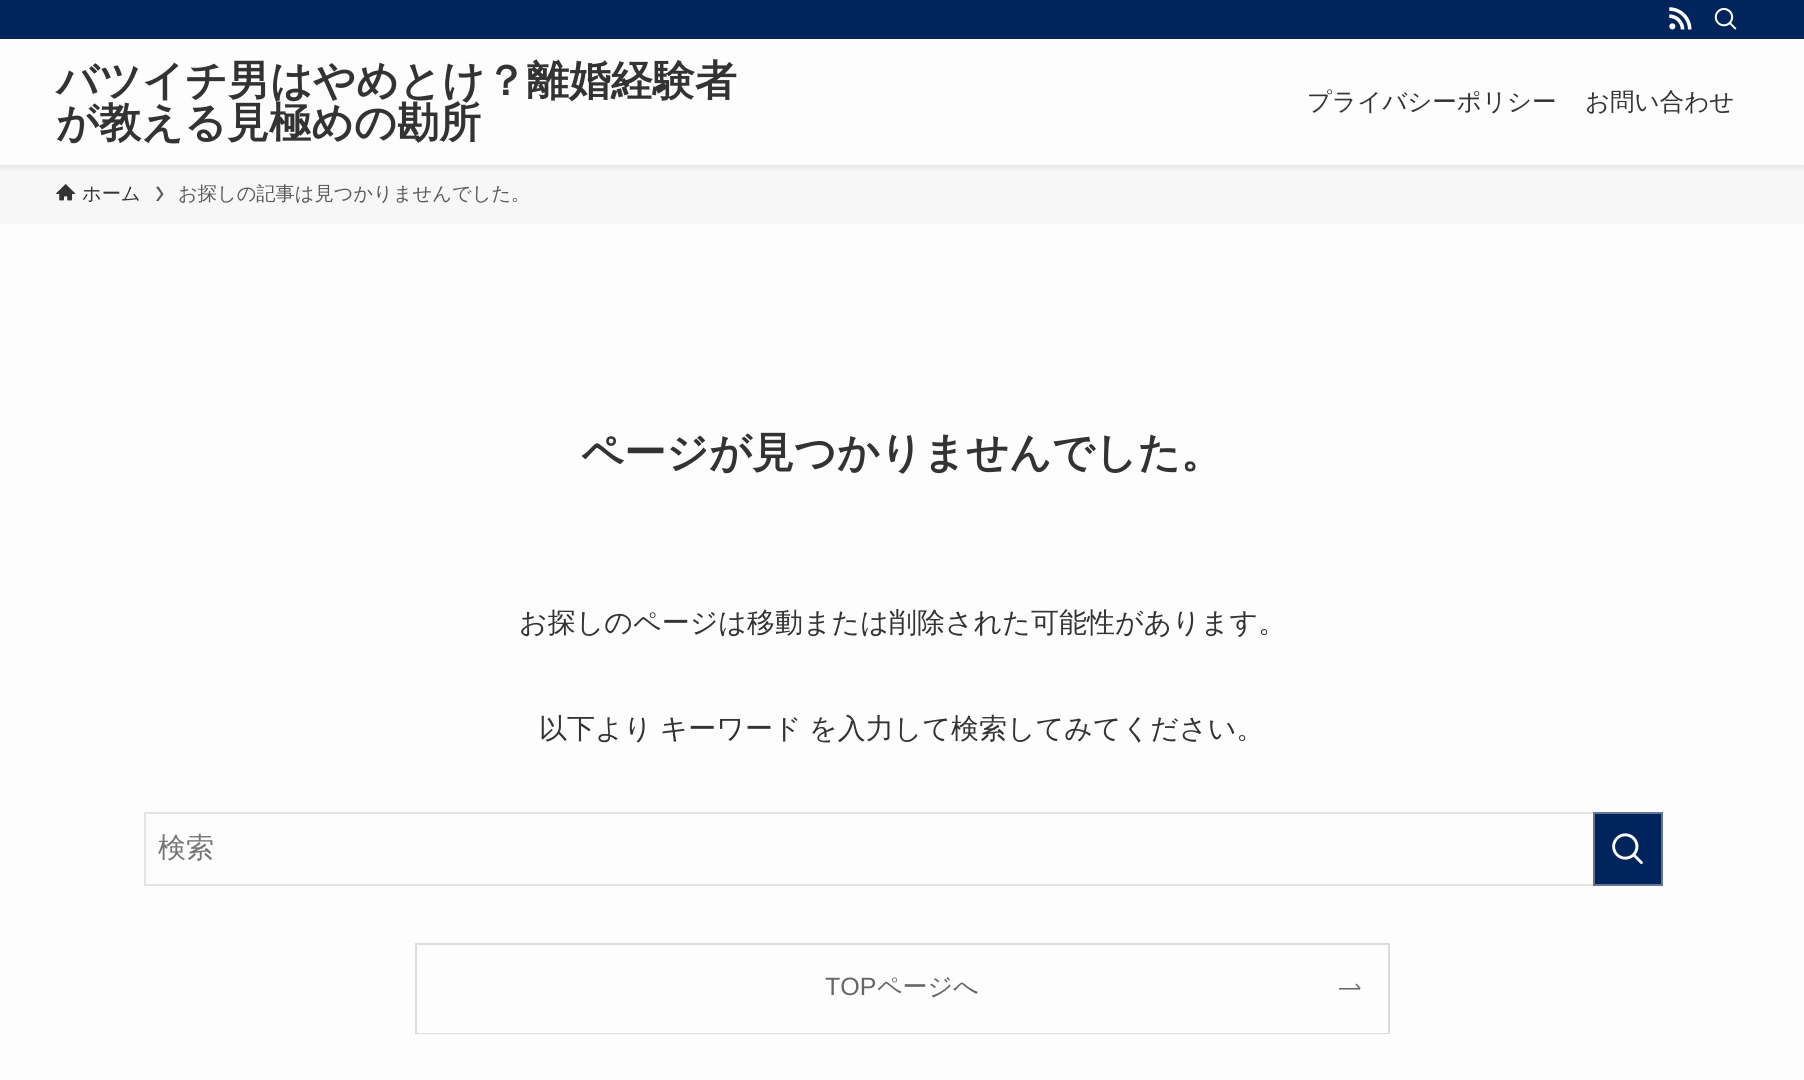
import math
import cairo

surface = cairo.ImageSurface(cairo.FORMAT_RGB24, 1804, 1080)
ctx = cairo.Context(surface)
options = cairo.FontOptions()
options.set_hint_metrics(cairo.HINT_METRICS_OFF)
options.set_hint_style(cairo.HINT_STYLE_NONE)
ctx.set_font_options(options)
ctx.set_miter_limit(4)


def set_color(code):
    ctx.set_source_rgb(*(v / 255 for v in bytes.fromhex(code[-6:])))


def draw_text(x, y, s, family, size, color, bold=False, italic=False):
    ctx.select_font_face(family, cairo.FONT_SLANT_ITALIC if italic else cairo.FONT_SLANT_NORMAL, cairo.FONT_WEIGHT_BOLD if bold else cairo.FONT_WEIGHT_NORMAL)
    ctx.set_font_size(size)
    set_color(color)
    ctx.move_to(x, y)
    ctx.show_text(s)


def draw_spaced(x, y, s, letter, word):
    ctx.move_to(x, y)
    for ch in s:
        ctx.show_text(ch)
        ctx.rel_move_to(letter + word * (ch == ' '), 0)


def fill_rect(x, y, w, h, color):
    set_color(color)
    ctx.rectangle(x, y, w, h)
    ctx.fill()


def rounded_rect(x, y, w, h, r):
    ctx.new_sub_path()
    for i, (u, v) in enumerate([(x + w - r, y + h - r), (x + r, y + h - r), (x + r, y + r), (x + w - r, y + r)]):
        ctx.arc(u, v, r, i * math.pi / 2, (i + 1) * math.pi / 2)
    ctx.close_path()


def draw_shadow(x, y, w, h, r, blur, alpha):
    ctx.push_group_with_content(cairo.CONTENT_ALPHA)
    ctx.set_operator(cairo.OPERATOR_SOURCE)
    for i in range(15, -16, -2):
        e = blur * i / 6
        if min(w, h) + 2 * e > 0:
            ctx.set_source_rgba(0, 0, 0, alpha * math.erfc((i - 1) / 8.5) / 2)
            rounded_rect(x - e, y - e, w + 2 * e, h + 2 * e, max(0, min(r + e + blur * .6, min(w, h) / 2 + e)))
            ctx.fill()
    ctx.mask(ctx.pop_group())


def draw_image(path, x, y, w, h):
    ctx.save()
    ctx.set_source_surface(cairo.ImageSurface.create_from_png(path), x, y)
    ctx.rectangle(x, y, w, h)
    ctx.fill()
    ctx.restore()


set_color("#fdfdfd")
ctx.paint()
fill_rect(0, 165, 1804, 59, "#f7f7f7")
set_color("#000000")
draw_shadow(0, 2, 1804, 164, 0, 3.5, 0.12)
fill_rect(0, 39, 1804, 126, "#fdfdfd")
fill_rect(0, 0, 1804, 39, "#00245b")
draw_image("assets/img1.png", 1669, 7, 23, 23)
draw_image("assets/img2.png", 1714, 8, 23, 22)
draw_text(56, 95, "バツイチ男はやめとけ？離婚経験者", "WenQuanYi Zen Hei", 42, "#333333", bold=True)
draw_text(56, 137, "が教える見極めの勘所", "WenQuanYi Zen Hei", 42, "#333333", bold=True)
draw_text(1307, 110, "プライバシーポリシー", "WenQuanYi Zen Hei Medium", 24.5, "#333333")
draw_text(1585, 110, "お問い合わせ", "WenQuanYi Zen Hei Medium", 24.5, "#333333")
draw_image("assets/img3.png", 56, 184, 20, 17)
draw_text(82, 200, "ホーム", "WenQuanYi Zen Hei Medium", 19.25, "#333333")
set_color("#5a5a5a")
ctx.new_path()
ctx.move_to(158.5, 186.5)
ctx.line_to(156, 187)
ctx.line_to(161, 194)
ctx.line_to(156, 201)
ctx.line_to(158.5, 201)
ctx.line_to(163.5, 194)
ctx.close_path()
ctx.fill()
draw_text(178, 200, "お探しの記事は見つかりませんでした。", "WenQuanYi Zen Hei Medium", 19.25, "#5a5a5a")
draw_text(581, 467, "ページが見つかりませんでした。", "WenQuanYi Zen Hei", 42, "#333333", bold=True)
draw_text(519, 632, "お探しのページは移動または削除された可能性があります。", "WenQuanYi Zen Hei Medium", 28, "#333333")
draw_spaced(539, 738, "以下より キーワード を入力して検索してみてください。", 0, -1)
ctx.rectangle(145, 813, 1517, 72)
set_color("#e3e3e3")
ctx.stroke()
draw_text(158, 857, "検索", "WenQuanYi Zen Hei Medium", 28, "#757575")
set_color("#00245b")
ctx.rectangle(1594, 813, 68, 72)
ctx.fill_preserve()
set_color("#647691")
ctx.stroke()
draw_image("assets/img4.png", 1612, 833, 31, 31)
ctx.rectangle(416, 944, 973, 89)
set_color("#dcdcdc")
ctx.stroke()
fill_rect(417, 1032, 971, 1, "#ffffff")
draw_text(825, 995, "TOP", "Liberation Sans", 25, "#666666")
draw_text(877, 995, "ページへ", "WenQuanYi Zen Hei Medium", 25, "#666666")
ctx.new_path()
ctx.move_to(1360, 989.5)
ctx.line_to(1339, 989.5)
ctx.line_to(1339, 988)
ctx.line_to(1358.5, 988)
ctx.line_to(1355.5, 984.5)
ctx.line_to(1356.5, 983.5)
ctx.line_to(1360.5, 988)
ctx.close_path()
ctx.fill()
surface.write_to_png("output.png")
